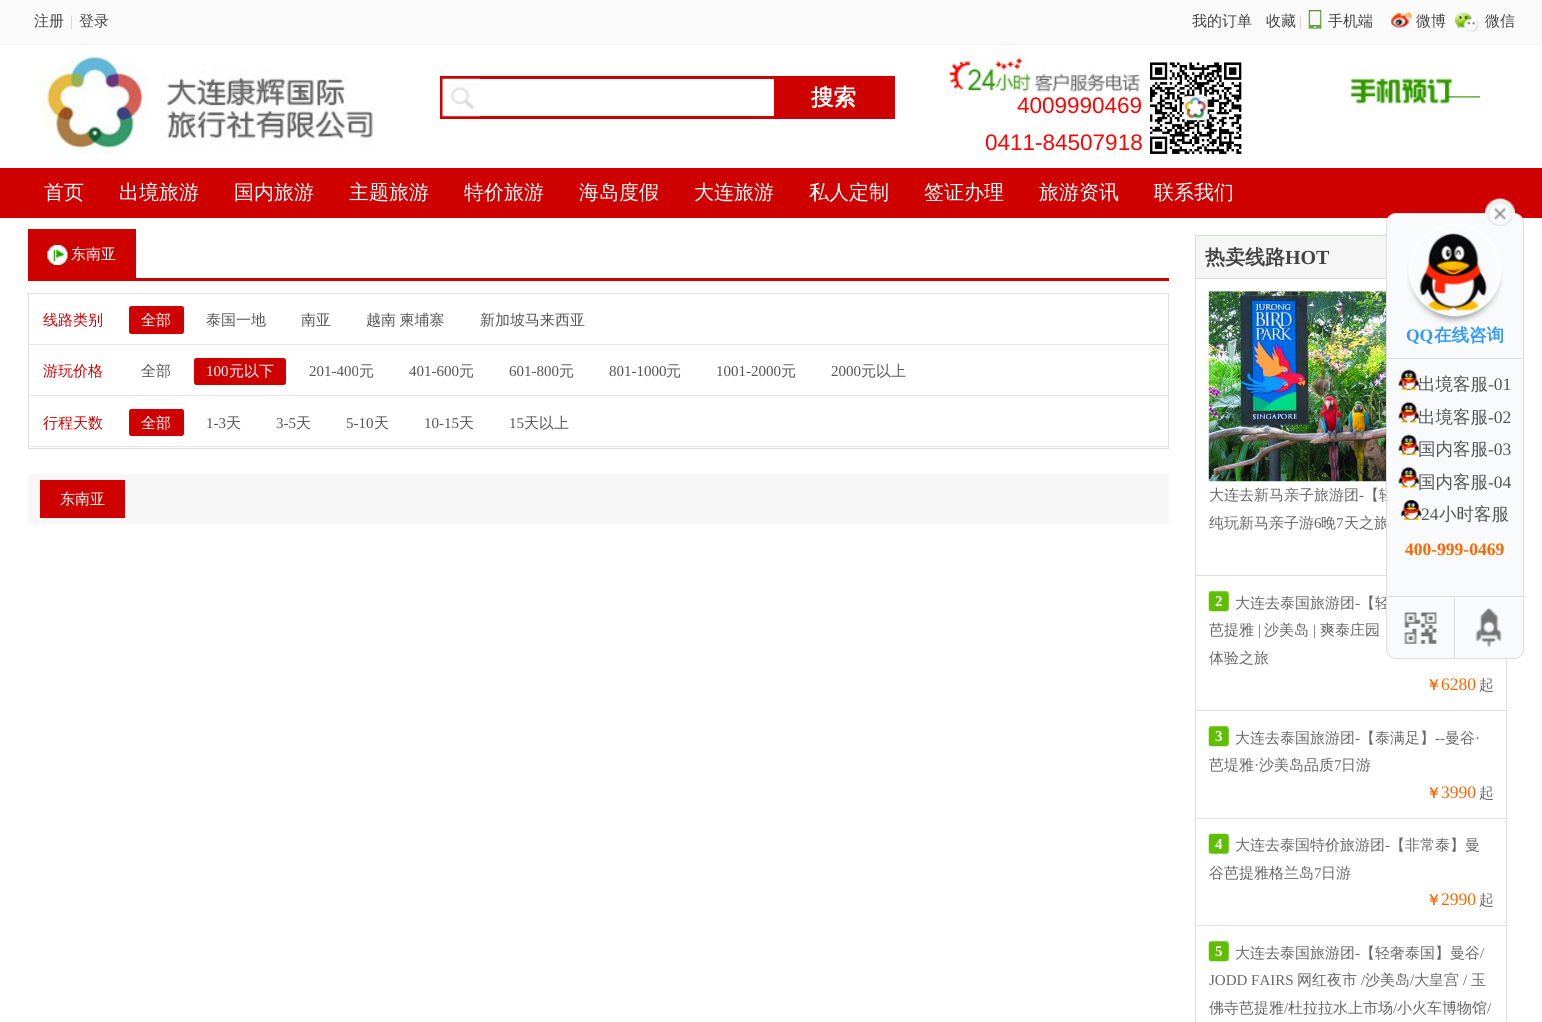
import math
import cairo

surface = cairo.ImageSurface(cairo.FORMAT_RGB24, 1542, 1022)
ctx = cairo.Context(surface)
options = cairo.FontOptions()
options.set_hint_metrics(cairo.HINT_METRICS_OFF)
options.set_hint_style(cairo.HINT_STYLE_NONE)
ctx.set_font_options(options)
ctx.set_miter_limit(4)


def set_color(code):
    ctx.set_source_rgb(*(v / 255 for v in bytes.fromhex(code[-6:])))


def draw_text(x, y, s, family, size, color, bold=False, italic=False):
    ctx.select_font_face(family, cairo.FONT_SLANT_ITALIC if italic else cairo.FONT_SLANT_NORMAL, cairo.FONT_WEIGHT_BOLD if bold else cairo.FONT_WEIGHT_NORMAL)
    ctx.set_font_size(size)
    set_color(color)
    ctx.move_to(x, y)
    ctx.show_text(s)


def draw_spaced(x, y, s, letter, word):
    ctx.move_to(x, y)
    for ch in s:
        ctx.show_text(ch)
        ctx.rel_move_to(letter + word * (ch == ' '), 0)


def fill_rect(x, y, w, h, color):
    set_color(color)
    ctx.rectangle(x, y, w, h)
    ctx.fill()


def rounded_rect(x, y, w, h, r):
    ctx.new_sub_path()
    for i, (u, v) in enumerate([(x + w - r, y + h - r), (x + r, y + h - r), (x + r, y + r), (x + w - r, y + r)]):
        ctx.arc(u, v, r, i * math.pi / 2, (i + 1) * math.pi / 2)
    ctx.close_path()


def draw_image(path, x, y, w, h):
    ctx.save()
    ctx.set_source_surface(cairo.ImageSurface.create_from_png(path), x, y)
    ctx.rectangle(x, y, w, h)
    ctx.fill()
    ctx.restore()


set_color("#ffffff")
ctx.paint()
fill_rect(0, 0, 1542, 44, "#fafafa")
fill_rect(0, 44, 1542, 1, "#f1f1f1")
draw_text(34, 26, "注册", "WenQuanYi Zen Hei Medium", 15, "#444444")
draw_text(70, 26, "|", "Liberation Serif", 15, "#cccccc")
draw_text(79, 26, "登录", "WenQuanYi Zen Hei Medium", 15, "#444444")
draw_text(1192, 26, "我的订单", "WenQuanYi Zen Hei Medium", 15, "#444444")
draw_text(1266, 26, "收藏", "WenQuanYi Zen Hei Medium", 15, "#444444")
draw_text(1299, 26, "|", "Liberation Serif", 15, "#cccccc")
draw_image("assets/img1.png", 1308, 9, 14, 20)
draw_text(1328, 26, "手机端", "WenQuanYi Zen Hei Medium", 15, "#444444")
draw_image("assets/img2.png", 1391, 12, 21, 16)
draw_text(1416, 26, "微博", "WenQuanYi Zen Hei Medium", 15, "#444444")
draw_image("assets/img3.png", 1454, 12, 25, 20)
draw_text(1485, 26, "微信", "WenQuanYi Zen Hei Medium", 15, "#444444")
draw_image("assets/img4.png", 40, 55, 336, 100)
ctx.rectangle(441.5, 77.5, 452, 40)
set_color("#cf0000")
ctx.set_line_width(3)
ctx.stroke()
draw_image("assets/img5.png", 442, 78, 38, 39)
fill_rect(774, 79, 118, 37, "#cf0000")
draw_text(811, 105, "搜索", "WenQuanYi Zen Hei", 22.5, "#ffffff", bold=True)
draw_image("assets/img6.png", 948, 55, 193, 40)
draw_text(1017, 113, "4009990469", "Liberation Sans", 22.5, "#fb0605")
draw_text(985, 150, "0411-84507918", "Liberation Sans", 22.5, "#fb0605")
draw_image("assets/img7.png", 1150, 62, 92, 92)
draw_image("assets/img8.png", 1351, 78, 129, 26)
fill_rect(0, 168, 1542, 50, "#cf0000")
draw_text(44, 199, "首页", "WenQuanYi Zen Hei Medium", 20, "#ffffff")
draw_text(119, 199, "出境旅游", "WenQuanYi Zen Hei Medium", 20, "#ffffff")
draw_text(234, 199, "国内旅游", "WenQuanYi Zen Hei Medium", 20, "#ffffff")
draw_text(349, 199, "主题旅游", "WenQuanYi Zen Hei Medium", 20, "#ffffff")
draw_text(464, 199, "特价旅游", "WenQuanYi Zen Hei Medium", 20, "#ffffff")
draw_text(579, 199, "海岛度假", "WenQuanYi Zen Hei Medium", 20, "#ffffff")
draw_text(694, 199, "大连旅游", "WenQuanYi Zen Hei Medium", 20, "#ffffff")
draw_text(809, 199, "私人定制", "WenQuanYi Zen Hei Medium", 20, "#ffffff")
draw_text(924, 199, "签证办理", "WenQuanYi Zen Hei Medium", 20, "#ffffff")
draw_text(1039, 199, "旅游资讯", "WenQuanYi Zen Hei Medium", 20, "#ffffff")
draw_text(1154, 199, "联系我们", "WenQuanYi Zen Hei Medium", 20, "#ffffff")
fill_rect(28, 278, 1141, 3, "#cf0000")
fill_rect(28, 229, 108, 49, "#cf0000")
draw_image("assets/img9.png", 47, 245, 21, 20)
draw_text(71, 259, "东南亚", "WenQuanYi Zen Hei Medium", 15, "#ffffff")
ctx.rectangle(28.5, 293.5, 1140, 155)
set_color("#dddddd")
ctx.set_line_width(1)
ctx.stroke()
fill_rect(29, 344, 1139, 1, "#e6e6e6")
draw_text(43, 325, "线路类别", "WenQuanYi Zen Hei Medium", 15, "#cf0000")
rounded_rect(129, 306, 55, 28, 2.5)
ctx.fill()
draw_text(141, 325, "全部", "WenQuanYi Zen Hei Medium", 15, "#ffffff")
draw_text(206, 325, "泰国一地", "WenQuanYi Zen Hei Medium", 15, "#555555")
draw_text(301, 325, "南亚", "WenQuanYi Zen Hei Medium", 15, "#555555")
draw_spaced(366, 325, "越南 柬埔寨", 0, -1)
draw_text(480, 325, "新加坡马来西亚", "WenQuanYi Zen Hei Medium", 15, "#555555")
fill_rect(29, 395, 1139, 1, "#e6e6e6")
draw_text(43, 376, "游玩价格", "WenQuanYi Zen Hei Medium", 15, "#cf0000")
draw_text(141, 376, "全部", "WenQuanYi Zen Hei Medium", 15, "#555555")
set_color("#cf0000")
rounded_rect(194, 358, 92, 27, 2.5)
ctx.fill()
draw_text(206, 376, "100", "Liberation Serif", 15, "#ffffff")
draw_text(229, 376, "元以下", "WenQuanYi Zen Hei Medium", 15, "#ffffff")
draw_text(309, 376, "201-400", "Liberation Serif", 15, "#555555")
draw_text(359, 376, "元", "WenQuanYi Zen Hei Medium", 15, "#555555")
draw_text(409, 376, "401-600", "Liberation Serif", 15, "#555555")
draw_text(459, 376, "元", "WenQuanYi Zen Hei Medium", 15, "#555555")
draw_text(509, 376, "601-800", "Liberation Serif", 15, "#555555")
draw_text(559, 376, "元", "WenQuanYi Zen Hei Medium", 15, "#555555")
draw_text(609, 376, "801-1000", "Liberation Serif", 15, "#555555")
draw_text(666, 376, "元", "WenQuanYi Zen Hei Medium", 15, "#555555")
draw_text(716, 376, "1001-2000", "Liberation Serif", 15, "#555555")
draw_text(781, 376, "元", "WenQuanYi Zen Hei Medium", 15, "#555555")
draw_text(831, 376, "2000", "Liberation Serif", 15, "#555555")
draw_text(861, 376, "元以上", "WenQuanYi Zen Hei Medium", 15, "#555555")
fill_rect(29, 446, 1139, 1, "#e6e6e6")
draw_text(43, 428, "行程天数", "WenQuanYi Zen Hei Medium", 15, "#cf0000")
rounded_rect(129, 409, 55, 27, 2.5)
ctx.fill()
draw_text(141, 428, "全部", "WenQuanYi Zen Hei Medium", 15, "#ffffff")
draw_text(206, 428, "1-3", "Liberation Serif", 15, "#555555")
draw_text(226, 428, "天", "WenQuanYi Zen Hei Medium", 15, "#555555")
draw_text(276, 428, "3-5", "Liberation Serif", 15, "#555555")
draw_text(296, 428, "天", "WenQuanYi Zen Hei Medium", 15, "#555555")
draw_text(346, 428, "5-10", "Liberation Serif", 15, "#555555")
draw_text(374, 428, "天", "WenQuanYi Zen Hei Medium", 15, "#555555")
draw_text(424, 428, "10-15", "Liberation Serif", 15, "#555555")
draw_text(459, 428, "天", "WenQuanYi Zen Hei Medium", 15, "#555555")
draw_text(509, 428, "15", "Liberation Serif", 15, "#555555")
draw_text(524, 428, "天以上", "WenQuanYi Zen Hei Medium", 15, "#555555")
fill_rect(28, 474, 1141, 50, "#f7f7f7")
fill_rect(40, 480, 85, 38, "#cf0000")
draw_text(60, 504, "东南亚", "WenQuanYi Zen Hei Medium", 15, "#ffffff")
fill_rect(1196, 236, 190, 42, "#f6f6f6")
fill_rect(1195, 235, 191, 1, "#d7e1cf")
fill_rect(1195, 235, 1, 43, "#d7e1cf")
draw_text(1205, 264, "热卖线路", "WenQuanYi Zen Hei", 20, "#444444", bold=True)
draw_text(1285, 264, "HOT", "Liberation Serif", 20, "#444444", bold=True)
fill_rect(1195, 278, 191, 1, "#dddddd")
fill_rect(1506, 659, 1, 363, "#dddddd")
fill_rect(1195, 278, 1, 744, "#dddddd")
fill_rect(1196, 575, 190, 1, "#dddddd")
draw_image("assets/img10.png", 1208, 291, 178, 191)
draw_text(1209, 500, "大连去新马亲子旅游团", "WenQuanYi Zen Hei Medium", 15, "#666666")
draw_text(1359, 500, "-", "Liberation Serif", 15, "#666666")
draw_text(1364, 500, "【轻", "WenQuanYi Zen Hei Medium", 15, "#666666")
draw_text(1209, 528, "纯玩新马亲子游", "WenQuanYi Zen Hei Medium", 15, "#666666")
draw_text(1314, 528, "6", "Liberation Serif", 15, "#666666")
draw_text(1321, 528, "晚", "WenQuanYi Zen Hei Medium", 15, "#666666")
draw_text(1336, 528, "7", "Liberation Serif", 15, "#666666")
draw_text(1344, 528, "天之旅", "WenQuanYi Zen Hei Medium", 15, "#666666")
fill_rect(1196, 710, 310, 1, "#dddddd")
draw_image("assets/img11.png", 1208, 591, 21, 21)
draw_text(1215, 606, "2", "Liberation Serif", 15, "#ffffff", bold=True)
draw_text(1235, 608, "大连去泰国旅游团", "WenQuanYi Zen Hei Medium", 15, "#666666")
draw_text(1355, 608, "-", "Liberation Serif", 15, "#666666")
draw_text(1360, 608, "【轻", "WenQuanYi Zen Hei Medium", 15, "#666666")
draw_text(1209, 635, "芭提雅", "WenQuanYi Zen Hei Medium", 15, "#666666")
draw_text(1258, 635, "|", "Liberation Serif", 15, "#666666")
draw_text(1264, 635, "沙美岛", "WenQuanYi Zen Hei Medium", 15, "#666666")
draw_text(1313, 635, "|", "Liberation Serif", 15, "#666666")
draw_text(1320, 635, "爽泰庄园", "WenQuanYi Zen Hei Medium", 15, "#666666")
draw_text(1209, 663, "体验之旅", "WenQuanYi Zen Hei Medium", 15, "#666666")
draw_text(1426, 690, "￥", "WenQuanYi Zen Hei", 15, "#ff6600", bold=True)
draw_text(1441, 690, "6280", "Liberation Serif", 17.5, "#ff6600")
draw_text(1479, 690, "起", "WenQuanYi Zen Hei Medium", 15, "#666666")
fill_rect(1196, 818, 310, 1, "#dddddd")
draw_image("assets/img11.png", 1208, 726, 21, 21)
draw_text(1215, 741, "3", "Liberation Serif", 15, "#ffffff", bold=True)
draw_text(1235, 743, "大连去泰国旅游团", "WenQuanYi Zen Hei Medium", 15, "#666666")
draw_text(1355, 743, "-", "Liberation Serif", 15, "#666666")
draw_text(1360, 743, "【泰满足】", "WenQuanYi Zen Hei Medium", 15, "#666666")
draw_text(1435, 743, "--", "Liberation Serif", 15, "#666666")
draw_text(1445, 743, "曼谷", "WenQuanYi Zen Hei Medium", 15, "#666666")
draw_text(1475, 743, "·", "Liberation Serif", 15, "#666666")
draw_text(1209, 770, "芭堤雅", "WenQuanYi Zen Hei Medium", 15, "#666666")
draw_text(1254, 770, "·", "Liberation Serif", 15, "#666666")
draw_text(1259, 770, "沙美岛品质", "WenQuanYi Zen Hei Medium", 15, "#666666")
draw_text(1334, 770, "7", "Liberation Serif", 15, "#666666")
draw_text(1341, 770, "日游", "WenQuanYi Zen Hei Medium", 15, "#666666")
draw_text(1426, 798, "￥", "WenQuanYi Zen Hei", 15, "#ff6600", bold=True)
draw_text(1441, 798, "3990", "Liberation Serif", 17.5, "#ff6600")
draw_text(1479, 798, "起", "WenQuanYi Zen Hei Medium", 15, "#666666")
fill_rect(1196, 925, 310, 1, "#dddddd")
draw_image("assets/img12.png", 1208, 833, 21, 21)
draw_text(1215, 849, "4", "Liberation Serif", 15, "#ffffff", bold=True)
draw_text(1235, 850, "大连去泰国特价旅游团", "WenQuanYi Zen Hei Medium", 15, "#666666")
draw_text(1385, 850, "-", "Liberation Serif", 15, "#666666")
draw_text(1390, 850, "【非常泰】曼", "WenQuanYi Zen Hei Medium", 15, "#666666")
draw_text(1209, 878, "谷芭提雅格兰岛", "WenQuanYi Zen Hei Medium", 15, "#666666")
draw_text(1314, 878, "7", "Liberation Serif", 15, "#666666")
draw_text(1321, 878, "日游", "WenQuanYi Zen Hei Medium", 15, "#666666")
draw_text(1426, 905, "￥", "WenQuanYi Zen Hei", 15, "#ff6600", bold=True)
draw_text(1441, 905, "2990", "Liberation Serif", 17.5, "#ff6600")
draw_text(1479, 905, "起", "WenQuanYi Zen Hei Medium", 15, "#666666")
draw_image("assets/img11.png", 1208, 941, 21, 21)
draw_text(1215, 956, "5", "Liberation Serif", 15, "#ffffff", bold=True)
draw_text(1235, 958, "大连去泰国旅游团", "WenQuanYi Zen Hei Medium", 15, "#666666")
draw_text(1355, 958, "-", "Liberation Serif", 15, "#666666")
draw_text(1360, 958, "【轻奢泰国】曼谷", "WenQuanYi Zen Hei Medium", 15, "#666666")
draw_text(1480, 958, "/", "Liberation Serif", 15, "#666666")
draw_text(1209, 985, "JODD FAIRS", "Liberation Serif", 15, "#666666")
draw_text(1297, 985, "网红夜市", "WenQuanYi Zen Hei Medium", 15, "#666666")
draw_text(1361, 985, "/", "Liberation Serif", 15, "#666666")
draw_text(1365, 985, "沙美岛", "WenQuanYi Zen Hei Medium", 15, "#666666")
draw_text(1410, 985, "/", "Liberation Serif", 15, "#666666")
draw_text(1414, 985, "大皇宫", "WenQuanYi Zen Hei Medium", 15, "#666666")
draw_text(1463, 985, "/", "Liberation Serif", 15, "#666666")
draw_text(1471, 985, "玉", "WenQuanYi Zen Hei Medium", 15, "#666666")
draw_text(1209, 1013, "佛寺芭提雅", "WenQuanYi Zen Hei Medium", 15, "#666666")
draw_text(1284, 1013, "/", "Liberation Serif", 15, "#666666")
draw_text(1288, 1013, "杜拉拉水上市场", "WenQuanYi Zen Hei Medium", 15, "#666666")
draw_text(1393, 1013, "/", "Liberation Serif", 15, "#666666")
draw_text(1397, 1013, "小火车博物馆", "WenQuanYi Zen Hei Medium", 15, "#666666")
draw_text(1487, 1013, "/", "Liberation Serif", 15, "#666666")
set_color("#f9fafb")
rounded_rect(1386.5, 213.5, 137, 445, 9.5)
ctx.fill_preserve()
set_color("#dddddd")
ctx.stroke()
draw_image("assets/img14.png", 1407, 224, 96, 100)
draw_image("assets/img13.png", 1485, 197, 30, 29)
draw_image("assets/img15.png", 1419, 233, 68, 78)
draw_text(1406, 341, "QQ", "Liberation Serif", 17.5, "#3399ff", bold=True)
draw_text(1434, 341, "在线咨询", "WenQuanYi Zen Hei", 17.5, "#3399ff", bold=True)
fill_rect(1388, 358, 135, 1, "#dddddd")
fill_rect(1388, 596, 135, 1, "#dddddd")
draw_image("assets/img16.png", 1398, 369, 22, 22)
draw_text(1418, 390, "出境客服", "WenQuanYi Zen Hei Medium", 17.5, "#555555")
draw_text(1488, 390, "-01", "Liberation Serif", 17.5, "#555555")
draw_image("assets/img17.png", 1398, 401, 22, 22)
draw_text(1418, 423, "出境客服", "WenQuanYi Zen Hei Medium", 17.5, "#555555")
draw_text(1488, 423, "-02", "Liberation Serif", 17.5, "#555555")
draw_image("assets/img16.png", 1398, 434, 22, 22)
draw_text(1418, 455, "国内客服", "WenQuanYi Zen Hei Medium", 17.5, "#555555")
draw_text(1488, 455, "-03", "Liberation Serif", 17.5, "#555555")
draw_image("assets/img17.png", 1398, 466, 22, 22)
draw_text(1418, 488, "国内客服", "WenQuanYi Zen Hei Medium", 17.5, "#555555")
draw_text(1488, 488, "-04", "Liberation Serif", 17.5, "#555555")
draw_image("assets/img18.png", 1400, 500, 22, 20)
draw_text(1421, 520, "24", "Liberation Serif", 17.5, "#555555")
draw_text(1439, 520, "小时客服", "WenQuanYi Zen Hei Medium", 17.5, "#555555")
draw_text(1405, 555, "400-999-0469", "Liberation Serif", 17.5, "#ff6600", bold=True)
draw_image("assets/img19.png", 1404, 612, 33, 32)
fill_rect(1454, 598, 1, 60, "#dddddd")
draw_image("assets/img20.png", 1475, 608, 27, 39)
surface.write_to_png("output.png")
